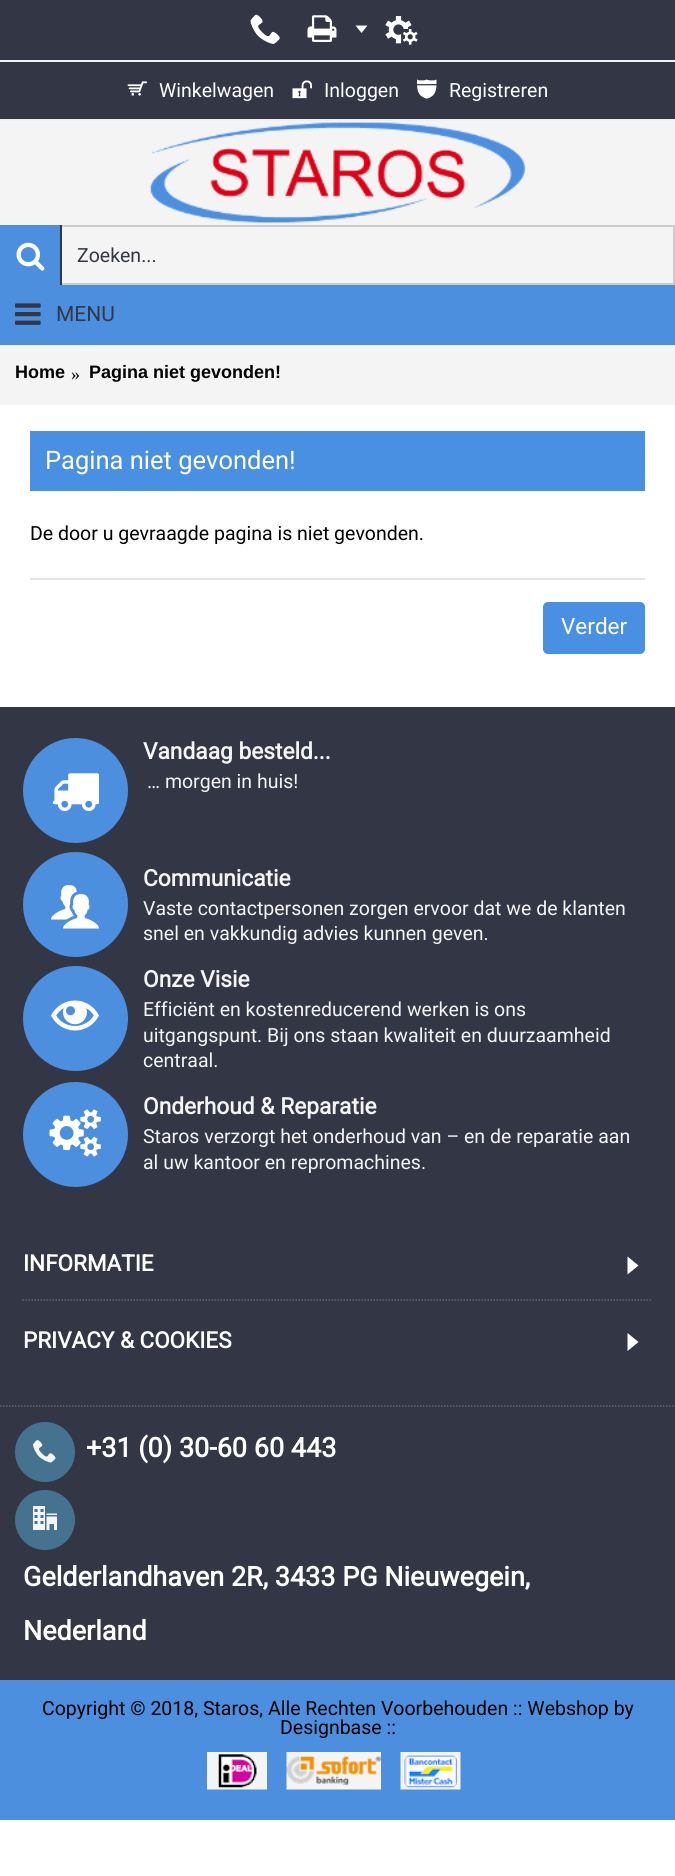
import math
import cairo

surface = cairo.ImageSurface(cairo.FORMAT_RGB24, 675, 1876)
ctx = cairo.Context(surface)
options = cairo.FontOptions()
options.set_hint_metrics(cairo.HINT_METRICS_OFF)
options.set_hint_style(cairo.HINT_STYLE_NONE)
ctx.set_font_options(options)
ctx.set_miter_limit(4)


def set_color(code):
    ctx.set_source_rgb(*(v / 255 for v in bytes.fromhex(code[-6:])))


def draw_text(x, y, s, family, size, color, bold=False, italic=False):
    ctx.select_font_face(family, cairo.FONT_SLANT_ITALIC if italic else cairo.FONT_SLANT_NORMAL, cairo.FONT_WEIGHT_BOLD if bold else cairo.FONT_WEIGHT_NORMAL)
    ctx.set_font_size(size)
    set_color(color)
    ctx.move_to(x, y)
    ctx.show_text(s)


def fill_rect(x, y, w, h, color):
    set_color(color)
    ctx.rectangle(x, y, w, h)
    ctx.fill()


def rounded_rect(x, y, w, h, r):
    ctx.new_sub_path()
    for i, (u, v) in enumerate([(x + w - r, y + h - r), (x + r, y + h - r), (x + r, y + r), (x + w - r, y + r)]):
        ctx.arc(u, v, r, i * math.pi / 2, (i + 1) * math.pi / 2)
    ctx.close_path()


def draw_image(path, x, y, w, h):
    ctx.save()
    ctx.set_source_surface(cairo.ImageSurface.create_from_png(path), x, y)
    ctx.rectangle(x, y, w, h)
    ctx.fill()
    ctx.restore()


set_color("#ffffff")
ctx.paint()
fill_rect(0, 121, 675, 162, "#f4f4f4")
fill_rect(0, 0, 675, 60, "#333745")
draw_image("assets/img1.png", 250, 14, 30, 30)
draw_image("assets/img2.png", 307, 15, 30, 27)
set_color("#ffffff")
ctx.new_path()
ctx.move_to(367.5, 25.5)
ctx.line_to(355.5, 25.5)
ctx.line_to(361.5, 33)
ctx.close_path()
ctx.fill()
draw_image("assets/img3.png", 385, 16, 33, 29)
fill_rect(0, 62, 675, 57, "#333745")
fill_rect(0, 60, 675, 2, "#eef1ea")
fill_rect(0, 119, 675, 2, "#eef1ea")
draw_image("assets/img4.png", 127, 81, 20, 15)
draw_text(159, 97, "Winkelwagen", "Roboto", 19.5, "#ffffff")
draw_image("assets/img5.png", 292, 80, 20, 19)
draw_text(324, 97, "Inloggen", "Roboto", 19.5, "#ffffff")
draw_image("assets/img6.png", 417, 79, 20, 20)
draw_text(449, 97, "Registreren", "Roboto", 19.5, "#ffffff")
draw_image("assets/img7.png", 150, 122, 376, 101)
ctx.rectangle(1, 226, 673, 58)
set_color("#cccccc")
ctx.stroke()
fill_rect(0, 225, 60, 60, "#4c8fdf")
fill_rect(60, 225, 2, 60, "#333745")
draw_image("assets/img8.png", 16, 242, 29, 29)
draw_text(77, 262, "Zoeken...", "Roboto", 19.5, "#333745")
fill_rect(0, 285, 675, 60, "#4c8fdf")
draw_image("assets/img9.png", 15, 303, 26, 22)
draw_text(56, 321, "MENU", "Roboto", 21, "#333745")
fill_rect(0, 345, 675, 60, "#f4f4f4")
draw_text(15, 378, "Home", "Liberation Sans", 18, "#000000", bold=True)
draw_text(71, 380, "»", "Liberation Serif", 18, "#000000")
draw_text(89, 378, "Pagina niet gevonden!", "Liberation Sans", 18, "#000000", bold=True)
fill_rect(30, 431, 615, 60, "#4a90e2")
draw_text(45, 469, "Pagina niet gevonden!", "Roboto", 25.5, "#ffffff")
draw_text(30, 540, "De door u gevraagde pagina is niet gevonden.", "Roboto", 19.5, "#000000")
fill_rect(30, 578, 615, 2, "#e4e4e4")
set_color("#4a90e2")
rounded_rect(543, 602, 102, 52, 5)
ctx.fill()
draw_text(561, 634, "Verder", "Roboto", 22.5, "#ffffff")
fill_rect(0, 707, 675, 973, "#333745")
set_color("#4c8fdf")
ctx.new_path()
ctx.arc(75.5, 790.5, 52.5, 0, 2 * math.pi)
ctx.fill()
draw_image("assets/img10.png", 52, 773, 47, 39)
draw_text(143, 759, "Vandaag besteld...", "Roboto", 22.75, "#f4f4f4", bold=True)
draw_text(147, 788, "… morgen in huis!", "Roboto", 19.5, "#f4f4f4")
set_color("#4c8fdf")
ctx.new_path()
ctx.arc(75.5, 904.5, 52.5, 0, 2 * math.pi)
ctx.fill()
draw_image("assets/img11.png", 51, 885, 48, 44)
draw_text(143, 886, "Communicatie", "Roboto", 22.75, "#f4f4f4", bold=True)
draw_text(143, 915, "Vaste contactpersonen zorgen ervoor dat we de klanten", "Roboto", 19.5, "#f4f4f4")
draw_text(143, 940, "snel en vakkundig advies kunnen geven.", "Roboto", 19.5, "#f4f4f4")
set_color("#4c8fdf")
ctx.new_path()
ctx.arc(75.5, 1018.5, 52.5, 0, 2 * math.pi)
ctx.fill()
draw_image("assets/img12.png", 51, 1000, 48, 31)
draw_text(143, 987, "Onze Visie", "Roboto", 22.75, "#f4f4f4", bold=True)
draw_text(143, 1016, "Efficiënt en kostenreducerend werken is ons", "Roboto", 19.5, "#f4f4f4")
draw_text(143, 1042, "uitgangspunt. Bij ons staan kwaliteit en duurzaamheid", "Roboto", 19.5, "#f4f4f4")
draw_text(143, 1067, "centraal.", "Roboto", 19.5, "#f4f4f4")
set_color("#4c8fdf")
ctx.new_path()
ctx.arc(75.5, 1134.5, 52.5, 0, 2 * math.pi)
ctx.fill()
draw_image("assets/img13.png", 49, 1109, 52, 48)
draw_text(143, 1114, "Onderhoud & Reparatie", "Roboto", 22.75, "#f4f4f4", bold=True)
draw_text(143, 1143, "Staros verzorgt het onderhoud van – en de reparatie aan", "Roboto", 19.5, "#f4f4f4")
draw_text(143, 1169, "al uw kantoor en repromachines.", "Roboto", 19.5, "#f4f4f4")
ctx.new_path()
ctx.move_to(22.5, 1300)
ctx.line_to(652.5, 1300)
set_color("#5f6874")
ctx.set_line_width(1.5)
ctx.set_dash([1.5, 1.5])
ctx.stroke()
draw_text(23, 1271, "INFORMATIE", "Roboto", 22.5, "#ffffff", bold=True)
ctx.new_path()
ctx.move_to(627.5, 1256.5)
ctx.line_to(627.5, 1274.5)
ctx.line_to(638.5, 1265.5)
ctx.close_path()
ctx.fill()
draw_text(23, 1348, "PRIVACY & COOKIES", "Roboto", 22.5, "#ffffff", bold=True)
ctx.new_path()
ctx.move_to(627.5, 1333)
ctx.line_to(627.5, 1351)
ctx.line_to(638.5, 1342)
ctx.close_path()
ctx.fill()
ctx.new_path()
ctx.move_to(0, 1406)
ctx.line_to(675, 1406)
set_color("#5f6874")
ctx.stroke()
set_color("#45738f")
ctx.arc(45, 1452, 30, 0, 2 * math.pi)
ctx.fill()
draw_image("assets/img14.png", 33, 1440, 23, 23)
draw_text(86, 1457, "+31 (0) 30-60 60 443", "Roboto", 27, "#ffffff", bold=True)
set_color("#45738f")
ctx.new_path()
ctx.arc(45, 1520, 30, 0, 2 * math.pi)
ctx.fill()
draw_image("assets/img15.png", 33, 1506, 24, 24)
draw_text(23, 1586, "Gelderlandhaven 2R, 3433 PG Nieuwegein,", "Roboto", 27, "#ffffff", bold=True)
draw_text(23, 1640, "Nederland", "Roboto", 27, "#ffffff", bold=True)
fill_rect(0, 1680, 675, 140, "#4c8fdf")
draw_text(42, 1715, "Copyright © 2018, Staros, Alle Rechten Voorbehouden :: Webshop by", "Roboto", 19.5, "#000000")
draw_text(280, 1734, "Designbase ::", "Roboto", 19.5, "#000000")
draw_image("assets/img16.png", 207, 1752, 60, 38)
draw_image("assets/img17.png", 286, 1752, 95, 38)
draw_image("assets/img18.png", 400, 1752, 61, 38)
surface.write_to_png("output.png")
